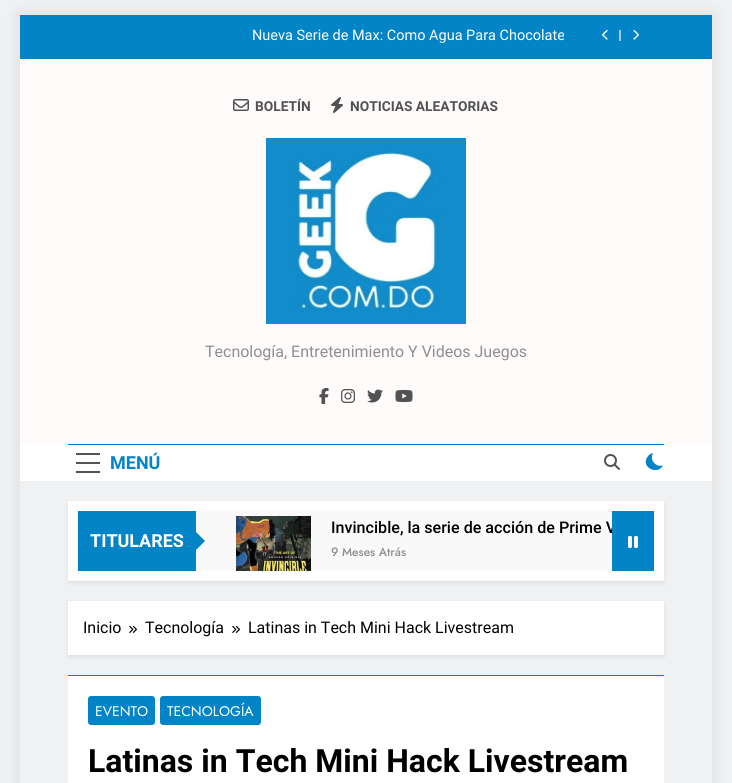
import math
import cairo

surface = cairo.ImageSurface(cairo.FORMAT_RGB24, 732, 783)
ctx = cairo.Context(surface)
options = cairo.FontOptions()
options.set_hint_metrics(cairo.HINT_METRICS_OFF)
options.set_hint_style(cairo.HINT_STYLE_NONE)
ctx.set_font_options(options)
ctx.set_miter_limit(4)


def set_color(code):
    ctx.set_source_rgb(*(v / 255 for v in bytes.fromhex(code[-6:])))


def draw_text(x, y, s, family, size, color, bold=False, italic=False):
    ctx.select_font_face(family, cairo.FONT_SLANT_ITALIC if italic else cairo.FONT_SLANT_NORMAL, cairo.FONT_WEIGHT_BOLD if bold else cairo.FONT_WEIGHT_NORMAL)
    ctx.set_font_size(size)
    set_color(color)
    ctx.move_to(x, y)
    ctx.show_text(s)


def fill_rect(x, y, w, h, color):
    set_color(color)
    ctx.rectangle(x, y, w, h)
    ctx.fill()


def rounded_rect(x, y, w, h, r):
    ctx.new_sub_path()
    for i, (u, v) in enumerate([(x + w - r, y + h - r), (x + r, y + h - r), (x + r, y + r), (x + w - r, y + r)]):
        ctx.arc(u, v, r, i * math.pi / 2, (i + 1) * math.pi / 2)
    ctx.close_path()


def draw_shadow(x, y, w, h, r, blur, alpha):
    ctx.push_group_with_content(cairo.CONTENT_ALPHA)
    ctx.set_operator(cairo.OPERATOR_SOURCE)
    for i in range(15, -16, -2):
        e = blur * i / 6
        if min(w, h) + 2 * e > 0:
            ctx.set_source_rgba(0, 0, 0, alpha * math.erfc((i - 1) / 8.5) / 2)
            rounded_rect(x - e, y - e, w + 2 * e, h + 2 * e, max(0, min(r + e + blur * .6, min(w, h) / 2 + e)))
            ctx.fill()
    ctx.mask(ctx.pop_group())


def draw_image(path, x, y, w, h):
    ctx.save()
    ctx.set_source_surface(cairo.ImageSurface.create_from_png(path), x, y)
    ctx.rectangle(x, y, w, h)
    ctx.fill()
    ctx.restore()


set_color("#f0f1f2")
ctx.paint()
ctx.save()
ctx.set_fill_rule(cairo.FILL_RULE_EVEN_ODD)
ctx.new_path()
ctx.move_to(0, 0)
ctx.line_to(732, 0)
ctx.line_to(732, 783)
ctx.line_to(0, 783)
ctx.close_path()
ctx.move_to(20, 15)
ctx.line_to(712, 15)
ctx.line_to(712, 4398)
ctx.line_to(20, 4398)
ctx.close_path()
ctx.clip()
set_color("#000000")
draw_shadow(20, 15, 692, 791, 0, 7.5, 0.1)
ctx.restore()
fill_rect(20, 15, 692, 44, "#0284c7")
ctx.save()
ctx.rectangle(83, 28, 481, 16)
ctx.clip()
draw_text(252, 40, "Nueva Serie de Max: Como Agua Para Chocolate", "Roboto", 14.5, "#ffffff")
ctx.restore()
draw_image("assets/img1.png", 602, 30, 6, 10)
fill_rect(619, 30, 2, 11, "#9acee9")
draw_image("assets/img2.png", 633, 30, 6, 10)
fill_rect(20, 59, 692, 385, "#fffbfb")
draw_image("assets/img3.png", 233, 99, 16, 12)
draw_text(255, 111, "BOLETÍN", "Roboto", 13.75, "#525252", bold=True)
draw_image("assets/img4.png", 331, 97, 12, 16)
draw_text(350, 111, "NOTICIAS ALEATORIAS", "Roboto", 13.75, "#525252", bold=True)
draw_image("assets/img5.png", 266, 138, 200, 186)
draw_text(205, 357, "Tecnología, Entretenimiento Y Videos Juegos", "Roboto", 16, "#8f8f8f")
draw_image("assets/img6.png", 319, 388, 10, 16)
draw_image("assets/img7.png", 341, 389, 14, 14)
draw_image("assets/img8.png", 367, 389, 16, 14)
draw_image("assets/img9.png", 395, 390, 18, 12)
fill_rect(20, 444, 692, 37, "#ffffff")
fill_rect(68, 444, 596, 1, "#007bd9")
fill_rect(76, 453, 24, 2, "#525252")
fill_rect(76, 462, 24, 2, "#525252")
fill_rect(76, 471, 24, 2, "#525252")
draw_text(110, 469, "MENÚ", "Roboto", 18, "#0284c7", bold=True)
draw_image("assets/img10.png", 604, 454, 16, 16)
ctx.new_path()
ctx.move_to(663, 465.5)
ctx.curve_to(655.5, 467.5, 649.5, 460, 653, 453)
ctx.curve_to(650.5, 453.5, 648.5, 455, 647, 457.5)
ctx.curve_to(641, 467.5, 657.5, 475.5, 663, 465.5)
ctx.close_path()
ctx.fill()
set_color("#000000")
draw_shadow(68, 503, 596, 80, 0, 2, 0.08)
fill_rect(68, 501, 596, 80, "#ffffff")
fill_rect(78, 511, 118, 60, "#0284c7")
draw_text(90, 547, "TITULARES", "Roboto", 18, "#ffffff", bold=True)
fill_rect(196, 511, 416, 60, "#f9f9f9")
set_color("#0284c7")
ctx.new_path()
ctx.move_to(195, 551)
ctx.line_to(195, 531)
ctx.line_to(205, 541)
ctx.close_path()
ctx.fill()
draw_image("assets/img11.png", 236, 516, 75, 55)
ctx.save()
ctx.rectangle(331, 518, 281, 19)
ctx.clip()
draw_text(331, 533, "Invincible, la serie de acción de Prime V", "Roboto Medium", 16.1, "#000000")
ctx.restore()
draw_text(331, 556, "9 Meses Atrás", "Jost Medium", 12, "#8f8f8f")
fill_rect(612, 511, 42, 60, "#0284c7")
draw_image("assets/img12.png", 628, 536, 10, 12)
set_color("#000000")
draw_shadow(68, 603, 596, 54, 0, 2, 0.08)
fill_rect(68, 601, 596, 54, "#ffffff")
draw_text(83, 633, "Inicio", "Roboto", 16, "#000000")
draw_image("assets/img13.png", 129, 625, 8, 8)
draw_text(145, 633, "Tecnología", "Roboto", 16, "#000000")
draw_image("assets/img13.png", 232, 625, 8, 8)
draw_text(248, 633, "Latinas in Tech Mini Hack Livestream", "Roboto", 16, "#000000")
fill_rect(68, 676, 596, 107, "#ffffff")
fill_rect(68, 675, 596, 1, "#0284c7")
rounded_rect(88, 696, 67, 29, 3)
ctx.fill()
draw_text(95, 716, "EVENTO", "Jost", 14, "#ffffff")
set_color("#0284c7")
rounded_rect(160, 696, 101, 29, 3)
ctx.fill()
draw_text(167, 716, "TECNOLOGÍA", "Jost", 14, "#ffffff")
draw_text(88, 772, "Latinas in Tech Mini Hack Livestream", "Roboto", 32, "#000000", bold=True)
surface.write_to_png("output.png")
